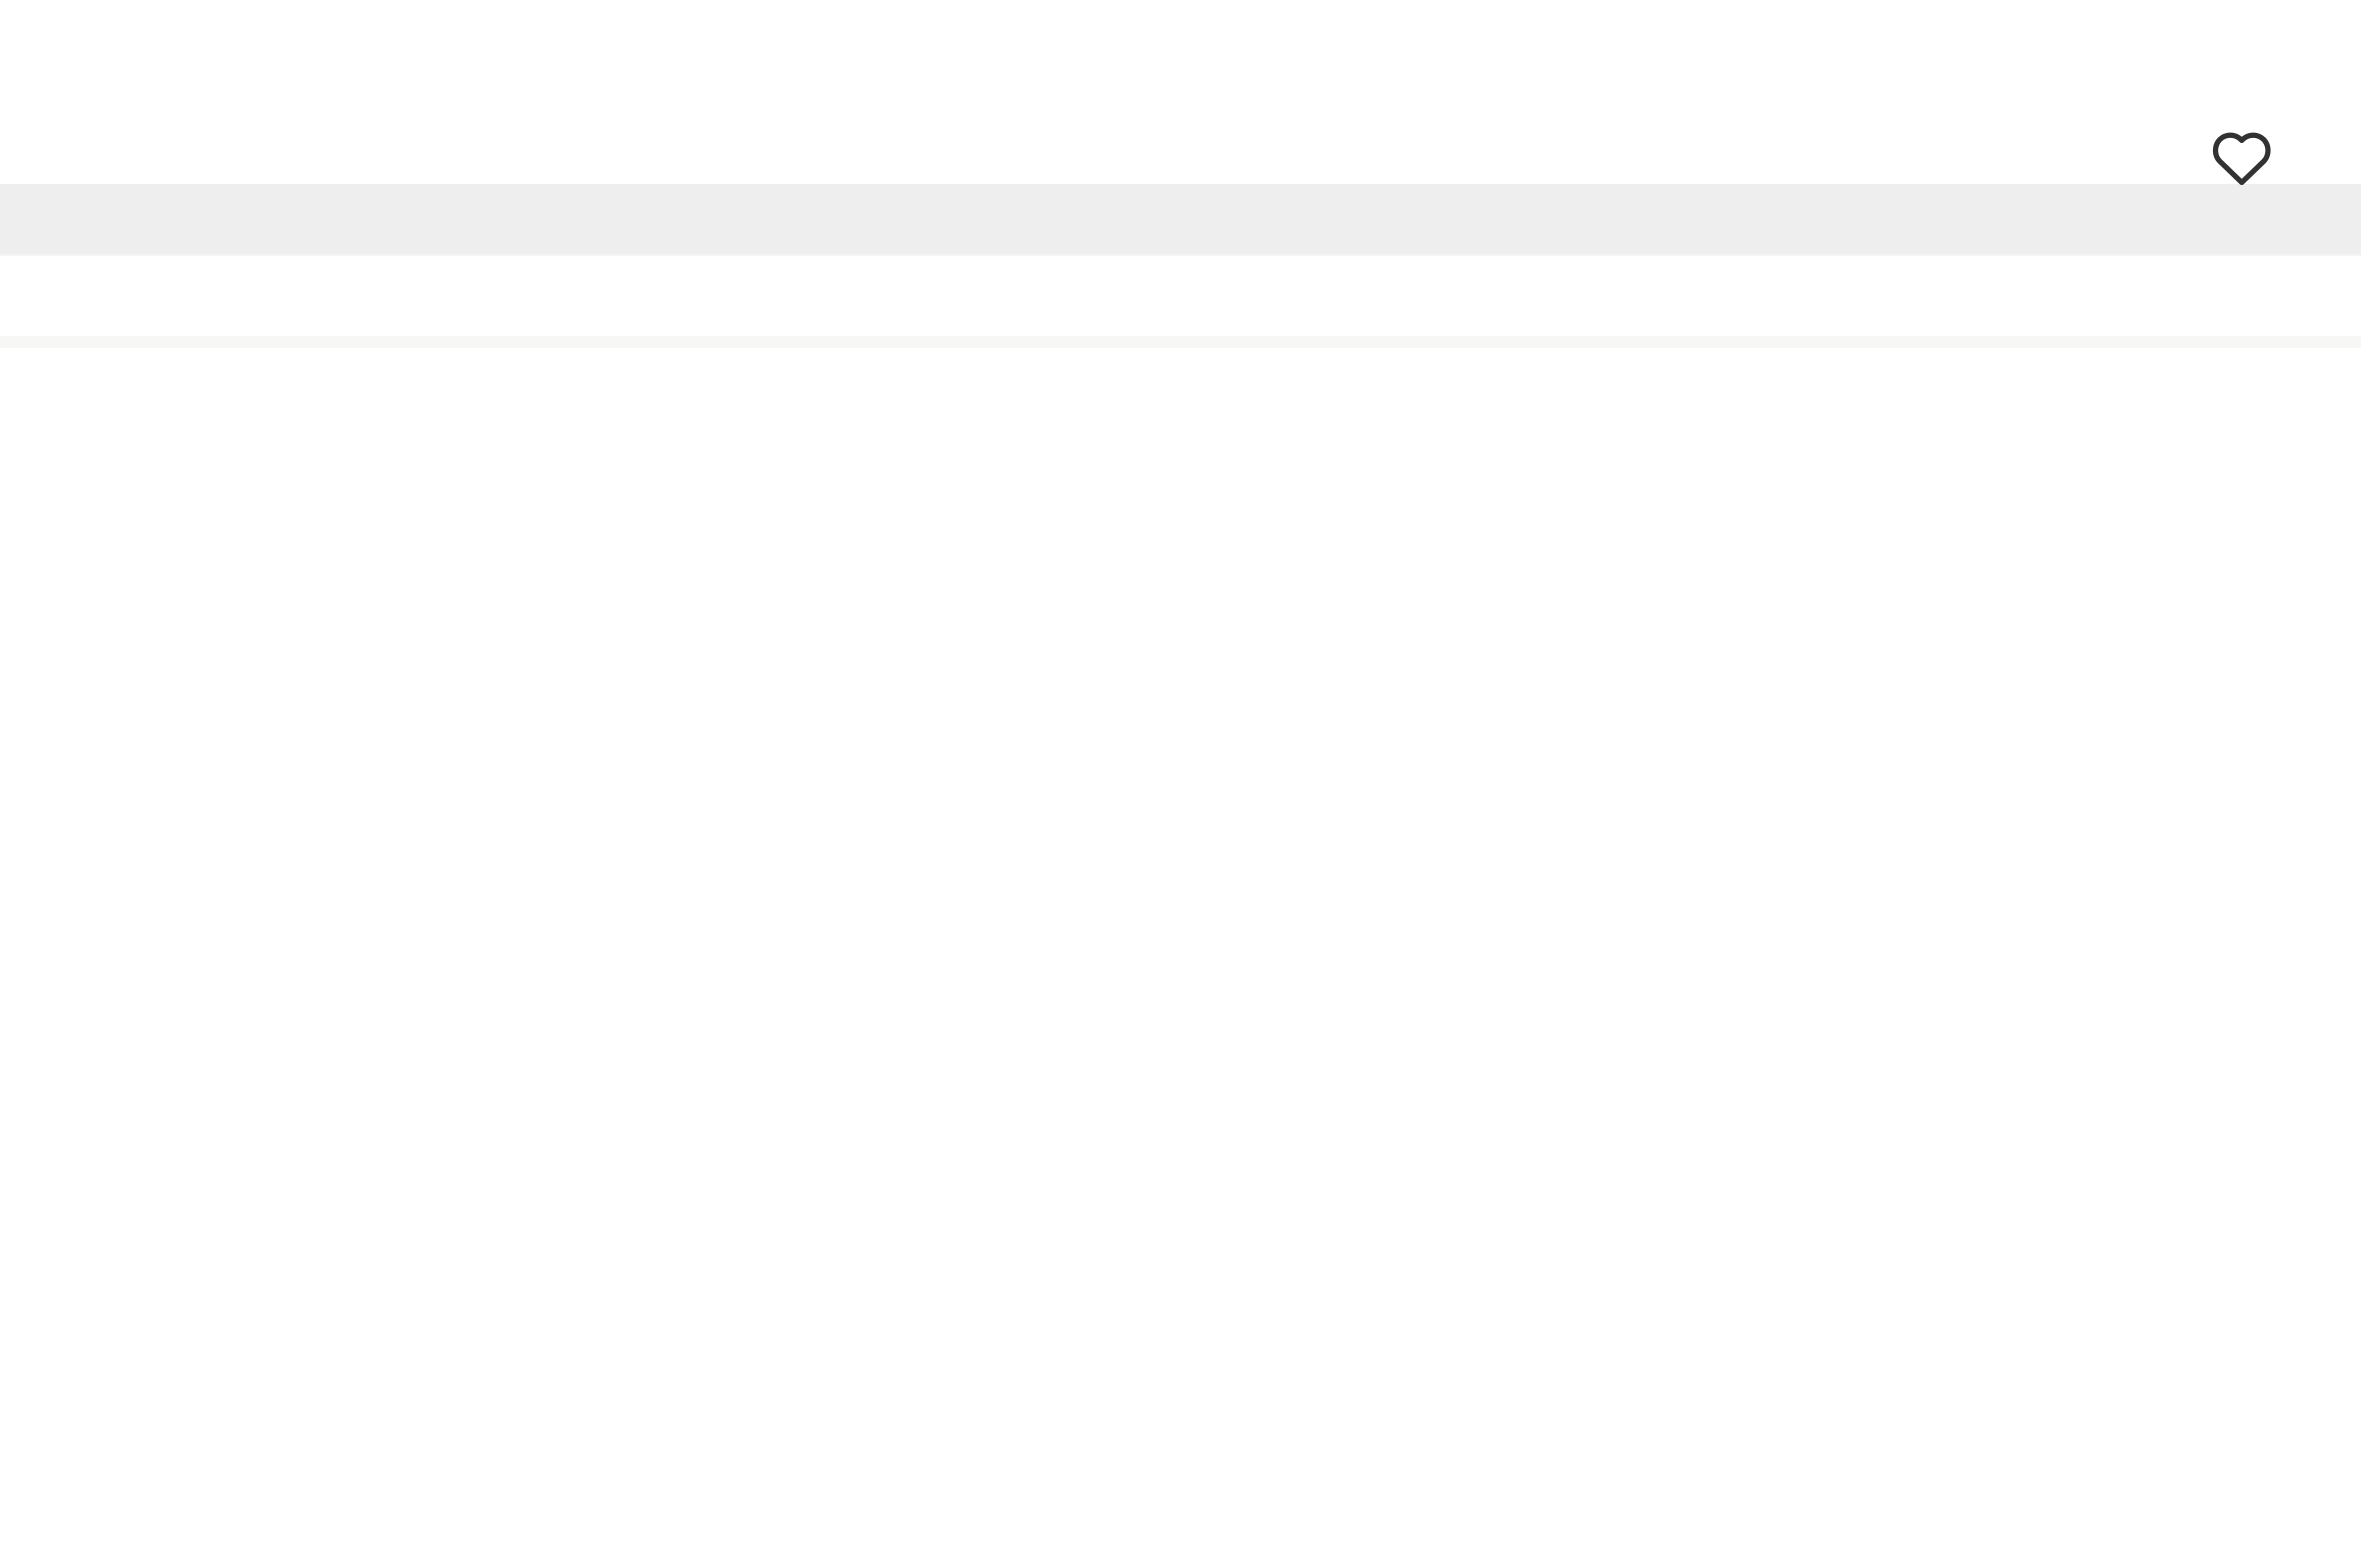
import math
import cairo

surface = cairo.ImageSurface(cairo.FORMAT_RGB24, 2361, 1544)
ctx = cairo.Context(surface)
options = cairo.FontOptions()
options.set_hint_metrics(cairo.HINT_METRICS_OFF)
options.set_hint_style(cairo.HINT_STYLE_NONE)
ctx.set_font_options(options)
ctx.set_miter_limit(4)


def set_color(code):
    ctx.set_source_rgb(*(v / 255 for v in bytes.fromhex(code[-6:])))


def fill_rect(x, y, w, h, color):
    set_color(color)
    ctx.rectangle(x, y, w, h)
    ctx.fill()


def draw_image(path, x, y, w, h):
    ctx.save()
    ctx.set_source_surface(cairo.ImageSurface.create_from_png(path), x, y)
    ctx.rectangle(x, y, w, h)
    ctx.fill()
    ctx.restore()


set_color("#ffffff")
ctx.paint()
fill_rect(0, 184, 2361, 70, "#eeeeee")
draw_image("assets/img1.png", 2212, 132, 59, 54)
fill_rect(0, 254, 2361, 2, "#f4f4f4")
fill_rect(0, 336, 2361, 12, "#f7f7f5")
surface.write_to_png("output.png")
